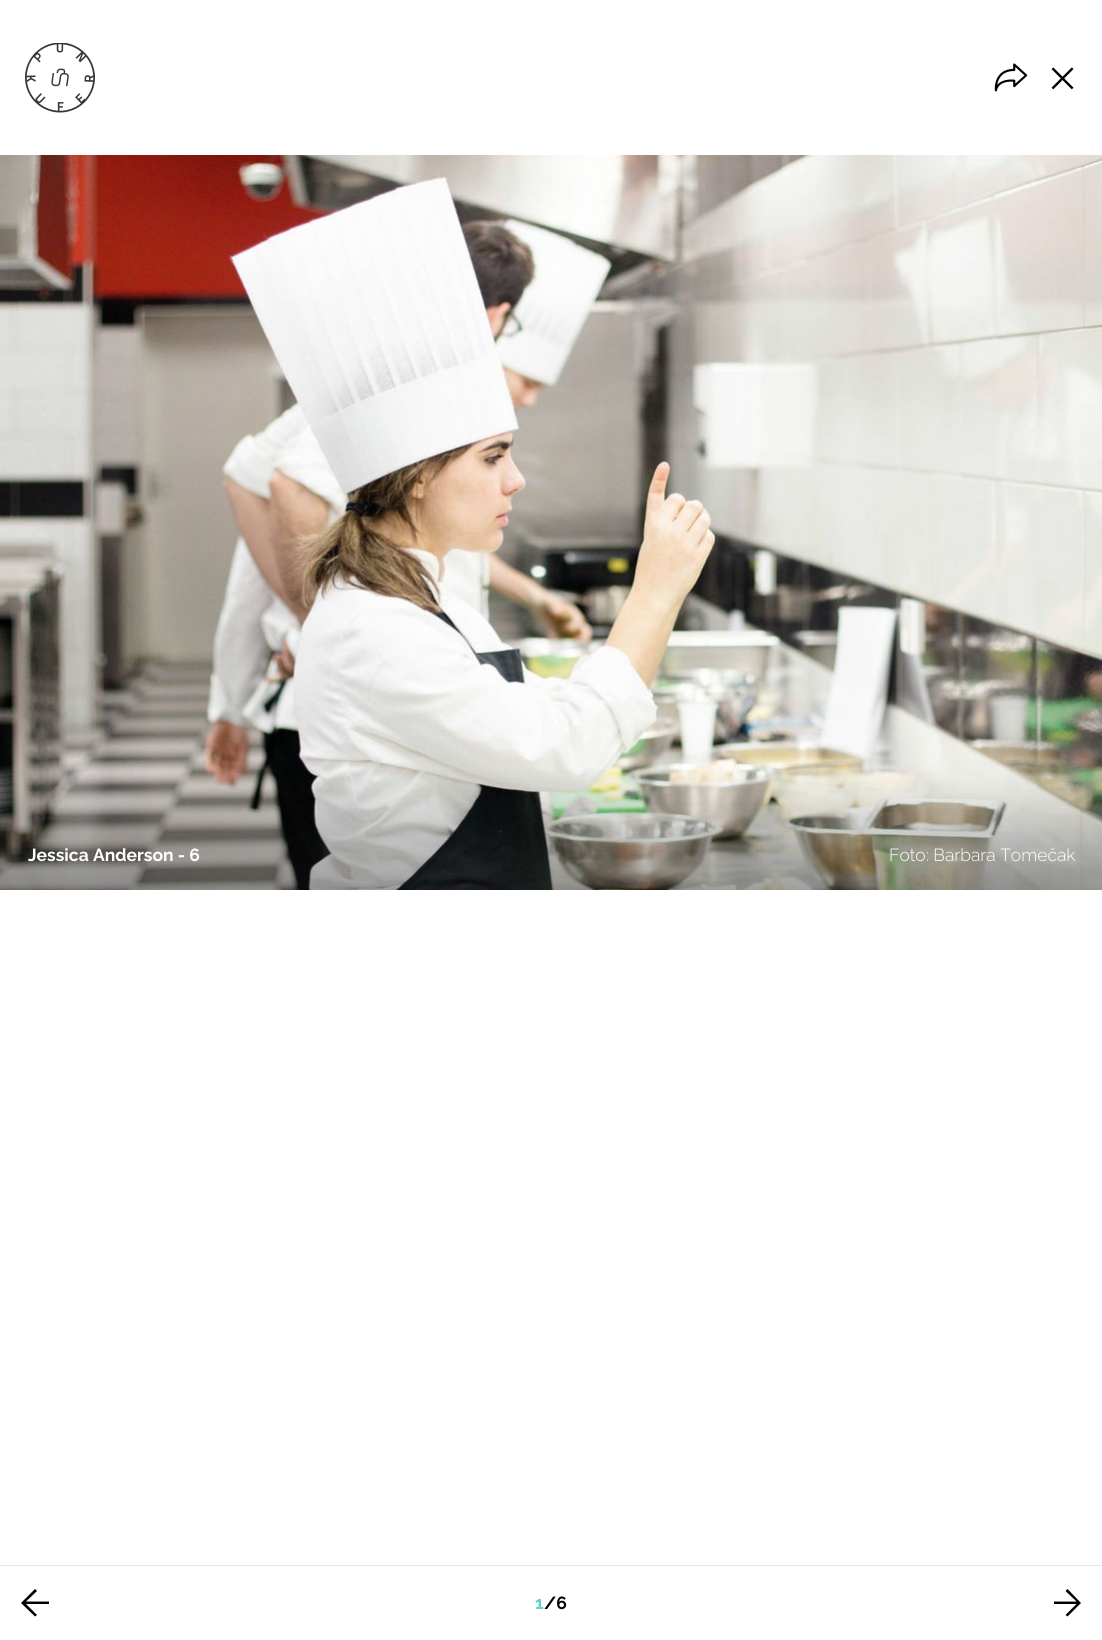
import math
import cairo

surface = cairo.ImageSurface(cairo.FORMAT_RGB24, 1102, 1640)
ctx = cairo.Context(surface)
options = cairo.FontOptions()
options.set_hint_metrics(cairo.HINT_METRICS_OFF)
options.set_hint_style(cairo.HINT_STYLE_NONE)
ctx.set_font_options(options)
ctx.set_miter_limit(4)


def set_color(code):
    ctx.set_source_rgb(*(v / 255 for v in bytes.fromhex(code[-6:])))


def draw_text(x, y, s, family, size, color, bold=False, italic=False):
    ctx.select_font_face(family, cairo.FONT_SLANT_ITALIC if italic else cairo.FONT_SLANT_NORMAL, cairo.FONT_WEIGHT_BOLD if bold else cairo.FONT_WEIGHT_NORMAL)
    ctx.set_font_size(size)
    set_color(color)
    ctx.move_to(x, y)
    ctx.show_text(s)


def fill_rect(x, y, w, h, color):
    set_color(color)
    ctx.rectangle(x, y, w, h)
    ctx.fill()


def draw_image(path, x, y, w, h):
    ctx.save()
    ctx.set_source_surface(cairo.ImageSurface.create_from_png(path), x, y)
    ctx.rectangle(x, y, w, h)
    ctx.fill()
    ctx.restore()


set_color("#ffffff")
ctx.paint()
draw_image("assets/img1.png", 25, 43, 70, 70)
draw_image("assets/img2.png", 994, 63, 34, 29)
draw_image("assets/img3.png", 1051, 67, 23, 23)
draw_image("assets/img4.png", 0, 155, 1102, 735)
draw_text(28, 861, "Jessica Anderson - 6", "Raleway", 17.5, "#ffffff", bold=True)
draw_text(889, 861, "Foto: Barbara Tomečak", "Raleway Light", 17.5, "#ffffff")
fill_rect(0, 1565, 1102, 1, "#e6e6e6")
set_color("#000000")
ctx.new_path()
ctx.move_to(35, 1616.5)
ctx.line_to(37, 1615)
ctx.line_to(26, 1604)
ctx.line_to(49, 1604)
ctx.line_to(49, 1601.5)
ctx.line_to(26, 1601.5)
ctx.line_to(37, 1591)
ctx.line_to(35, 1589)
ctx.line_to(21, 1603)
ctx.close_path()
ctx.fill()
draw_text(535, 1609, "1", "Raleway", 17.5, "#64cfcc", bold=True)
draw_text(544, 1609, "/6", "Raleway", 17.5, "#000000", bold=True)
ctx.new_path()
ctx.move_to(1067.5, 1616.5)
ctx.line_to(1065.5, 1615)
ctx.line_to(1076.5, 1604)
ctx.line_to(1054, 1604)
ctx.line_to(1054, 1601.5)
ctx.line_to(1076.5, 1601.5)
ctx.line_to(1065.5, 1591)
ctx.line_to(1067.5, 1589)
ctx.line_to(1081, 1603)
ctx.close_path()
ctx.fill()
surface.write_to_png("output.png")
